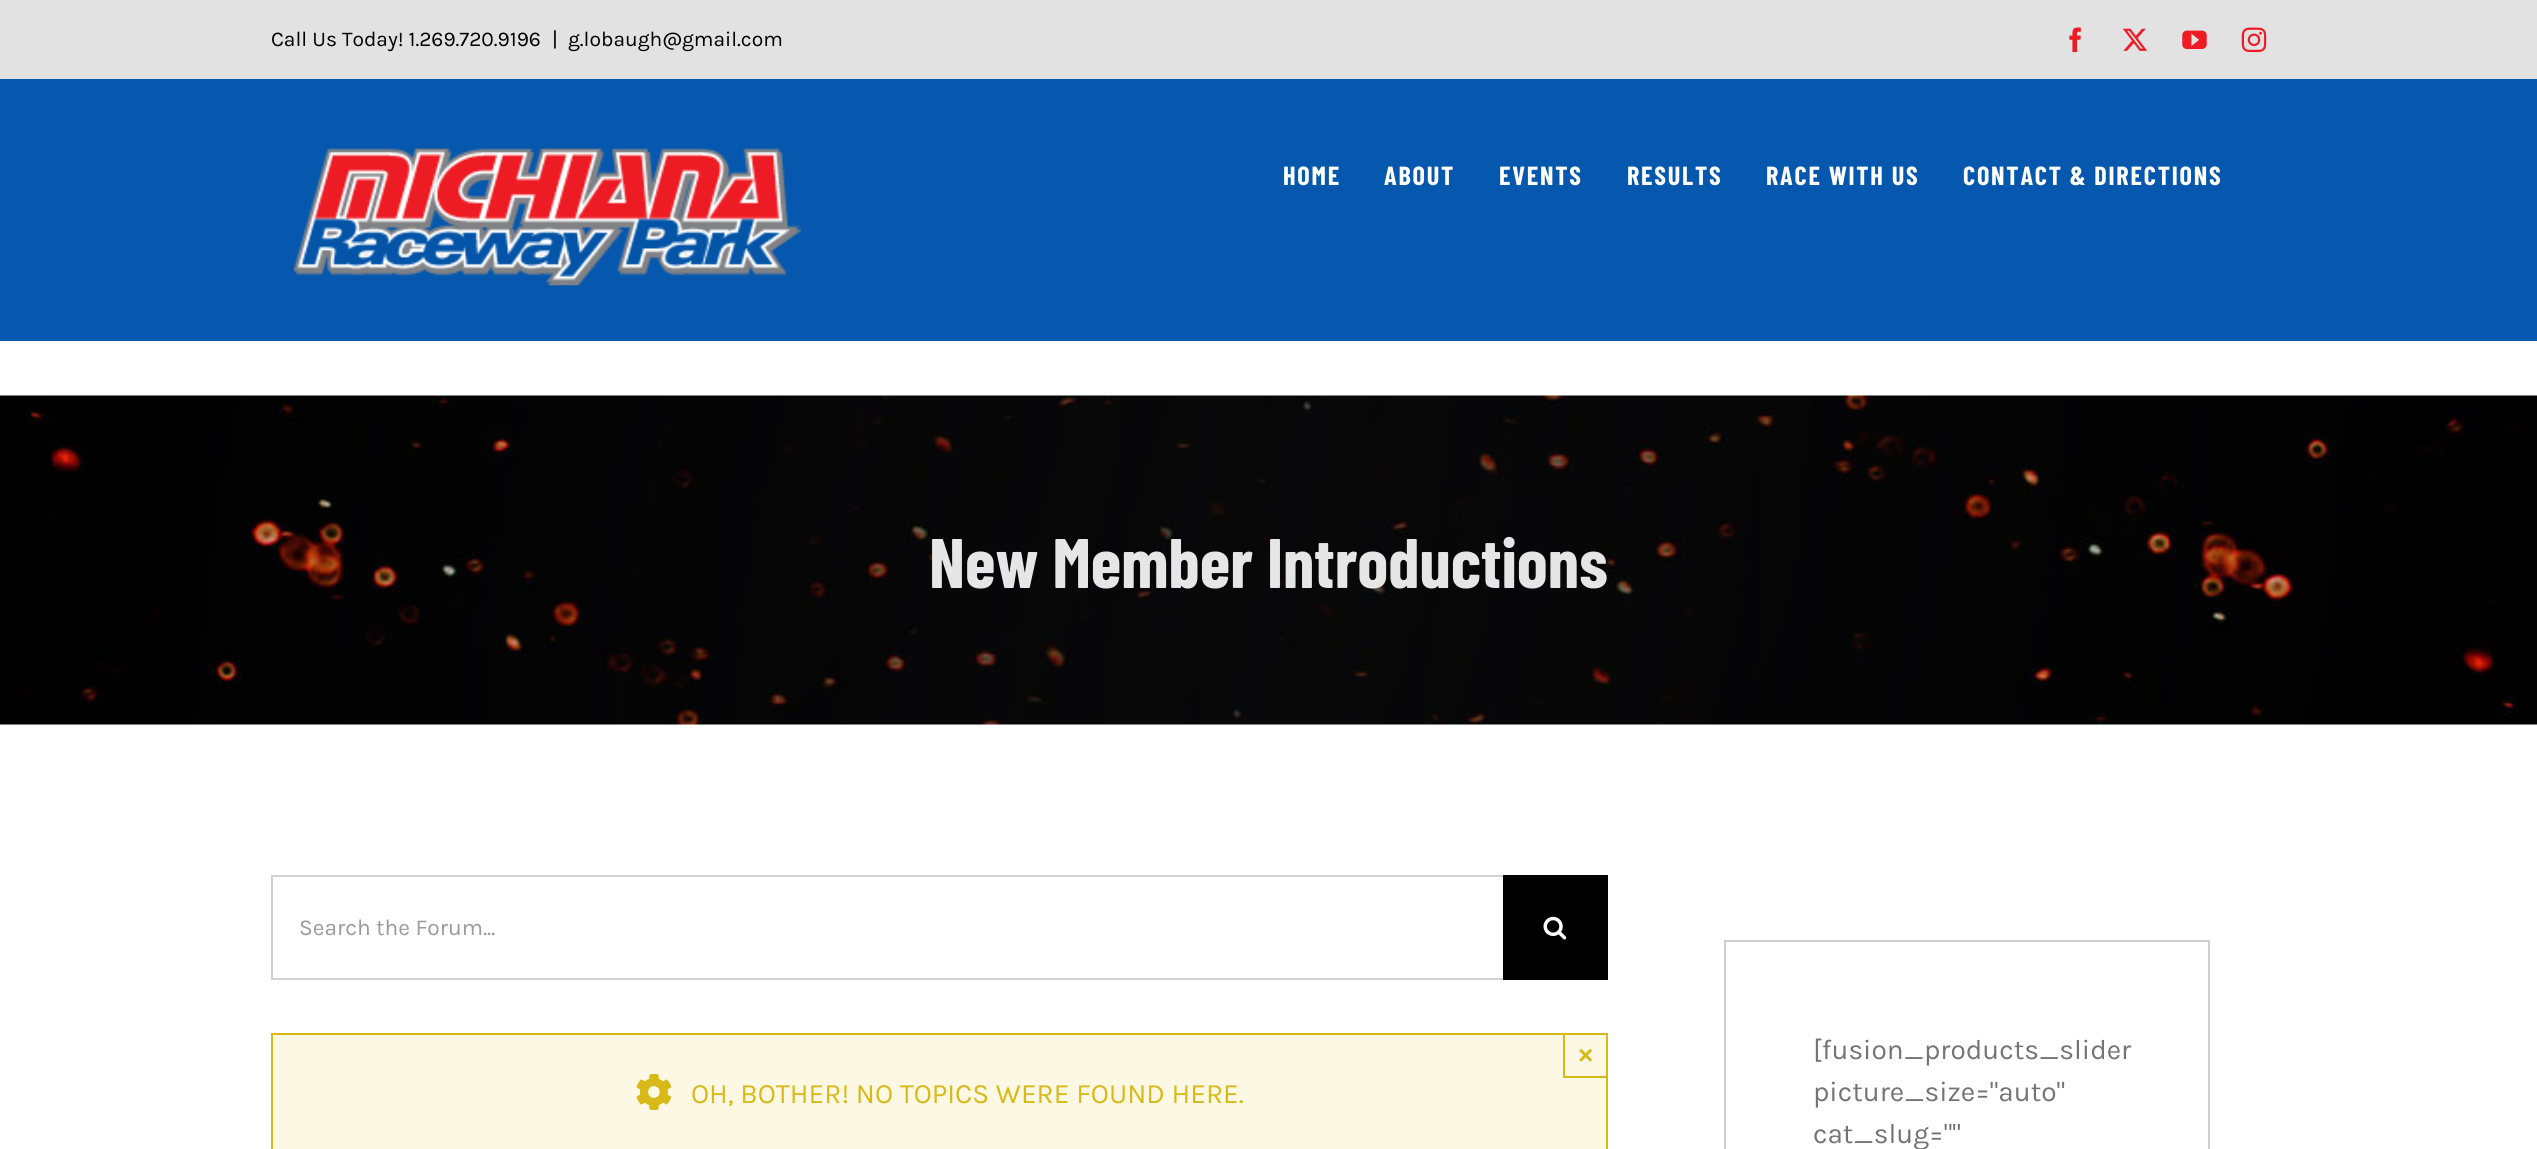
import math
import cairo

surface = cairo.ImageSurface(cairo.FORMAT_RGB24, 2537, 1149)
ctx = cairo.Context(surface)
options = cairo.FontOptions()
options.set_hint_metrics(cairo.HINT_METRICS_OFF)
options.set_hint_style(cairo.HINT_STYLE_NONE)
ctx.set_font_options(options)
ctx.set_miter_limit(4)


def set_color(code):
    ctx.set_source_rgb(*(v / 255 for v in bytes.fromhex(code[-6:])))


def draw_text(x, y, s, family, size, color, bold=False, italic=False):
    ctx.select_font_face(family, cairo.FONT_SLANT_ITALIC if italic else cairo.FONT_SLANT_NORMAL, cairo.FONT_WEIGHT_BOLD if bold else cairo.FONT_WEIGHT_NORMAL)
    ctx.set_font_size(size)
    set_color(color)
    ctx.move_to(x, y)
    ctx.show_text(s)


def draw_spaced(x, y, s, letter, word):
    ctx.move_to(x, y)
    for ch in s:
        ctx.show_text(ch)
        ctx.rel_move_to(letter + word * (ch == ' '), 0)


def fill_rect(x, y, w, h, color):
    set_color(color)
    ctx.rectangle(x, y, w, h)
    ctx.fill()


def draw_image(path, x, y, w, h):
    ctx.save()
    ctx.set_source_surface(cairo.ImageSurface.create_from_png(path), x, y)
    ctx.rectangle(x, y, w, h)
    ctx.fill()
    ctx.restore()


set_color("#ffffff")
ctx.paint()
fill_rect(0, 0, 2537, 79, "#e2e2e2")
draw_text(271, 46, "Call Us Today! 1.269.720.9196", "Karla", 21, "#000000")
draw_text(552, 46, "|", "Karla", 21, "#000000")
draw_text(568, 46, "g.lobaugh@gmail.com", "Karla", 21, "#000000")
draw_image("assets/img1.png", 2069, 27, 12, 26)
draw_image("assets/img2.png", 2122, 28, 26, 23)
draw_image("assets/img3.png", 2182, 30, 25, 19)
draw_image("assets/img4.png", 2241, 27, 26, 26)
fill_rect(0, 79, 2537, 262, "#0658ae")
draw_image("assets/img5.png", 294, 148, 508, 138)
ctx.select_font_face("Barlow Condensed", cairo.FONT_SLANT_NORMAL, cairo.FONT_WEIGHT_BOLD)
ctx.set_font_size(26.25)
set_color("#ffffff")
draw_spaced(1283, 185, "HOME", 1.75, 0)
draw_spaced(1384, 185, "ABOUT", 1.75, 0)
draw_spaced(1499, 185, "EVENTS", 1.75, 0)
draw_spaced(1627, 185, "RESULTS", 1.75, 0)
draw_spaced(1766, 185, "RACE WITH US", 1.75, 0)
draw_spaced(1963, 185, "CONTACT & DIRECTIONS", 1.75, 0)
draw_image("assets/img6.png", 0, 395, 2537, 330)
draw_text(929, 588, "New Member Introductions", "Barlow Condensed", 70, "#e6e6e6", bold=True)
fill_rect(271, 875, 1232, 2, "#d2d2d2")
fill_rect(271, 978, 1232, 2, "#d2d2d2")
fill_rect(271, 875, 2, 105, "#d2d2d2")
draw_text(299, 935, "Search the Forum...", "Karla", 22.75, "#9a9a9a")
fill_rect(1503, 875, 105, 105, "#000000")
draw_image("assets/img7.png", 1543, 916, 24, 24)
set_color("#fcf8e3")
ctx.rectangle(272, 1034, 1335, 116)
ctx.fill_preserve()
set_color("#d9b917")
ctx.stroke()
fill_rect(1563, 1076, 45, 2, "#d9b917")
fill_rect(1563, 1033, 2, 45, "#d9b917")
draw_text(1578, 1064, "×", "Liberation Sans", 26.25, "#d9b917", bold=True)
draw_image("assets/img8.png", 636, 1073, 36, 38)
draw_text(691, 1103, "OH, BOTHER! NO TOPICS WERE FOUND HERE.", "Karla", 28, "#d9b917")
ctx.rectangle(1725, 941, 484, 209)
set_color("#cecece")
ctx.stroke()
draw_text(1813, 1059, "[fusion_products_slider", "Karla", 28, "#747474")
draw_text(1813, 1101, "picture_size=\"auto\"", "Karla", 28, "#747474")
draw_text(1813, 1143, "cat_slug=\"\"", "Karla", 28, "#747474")
surface.write_to_png("output.png")
